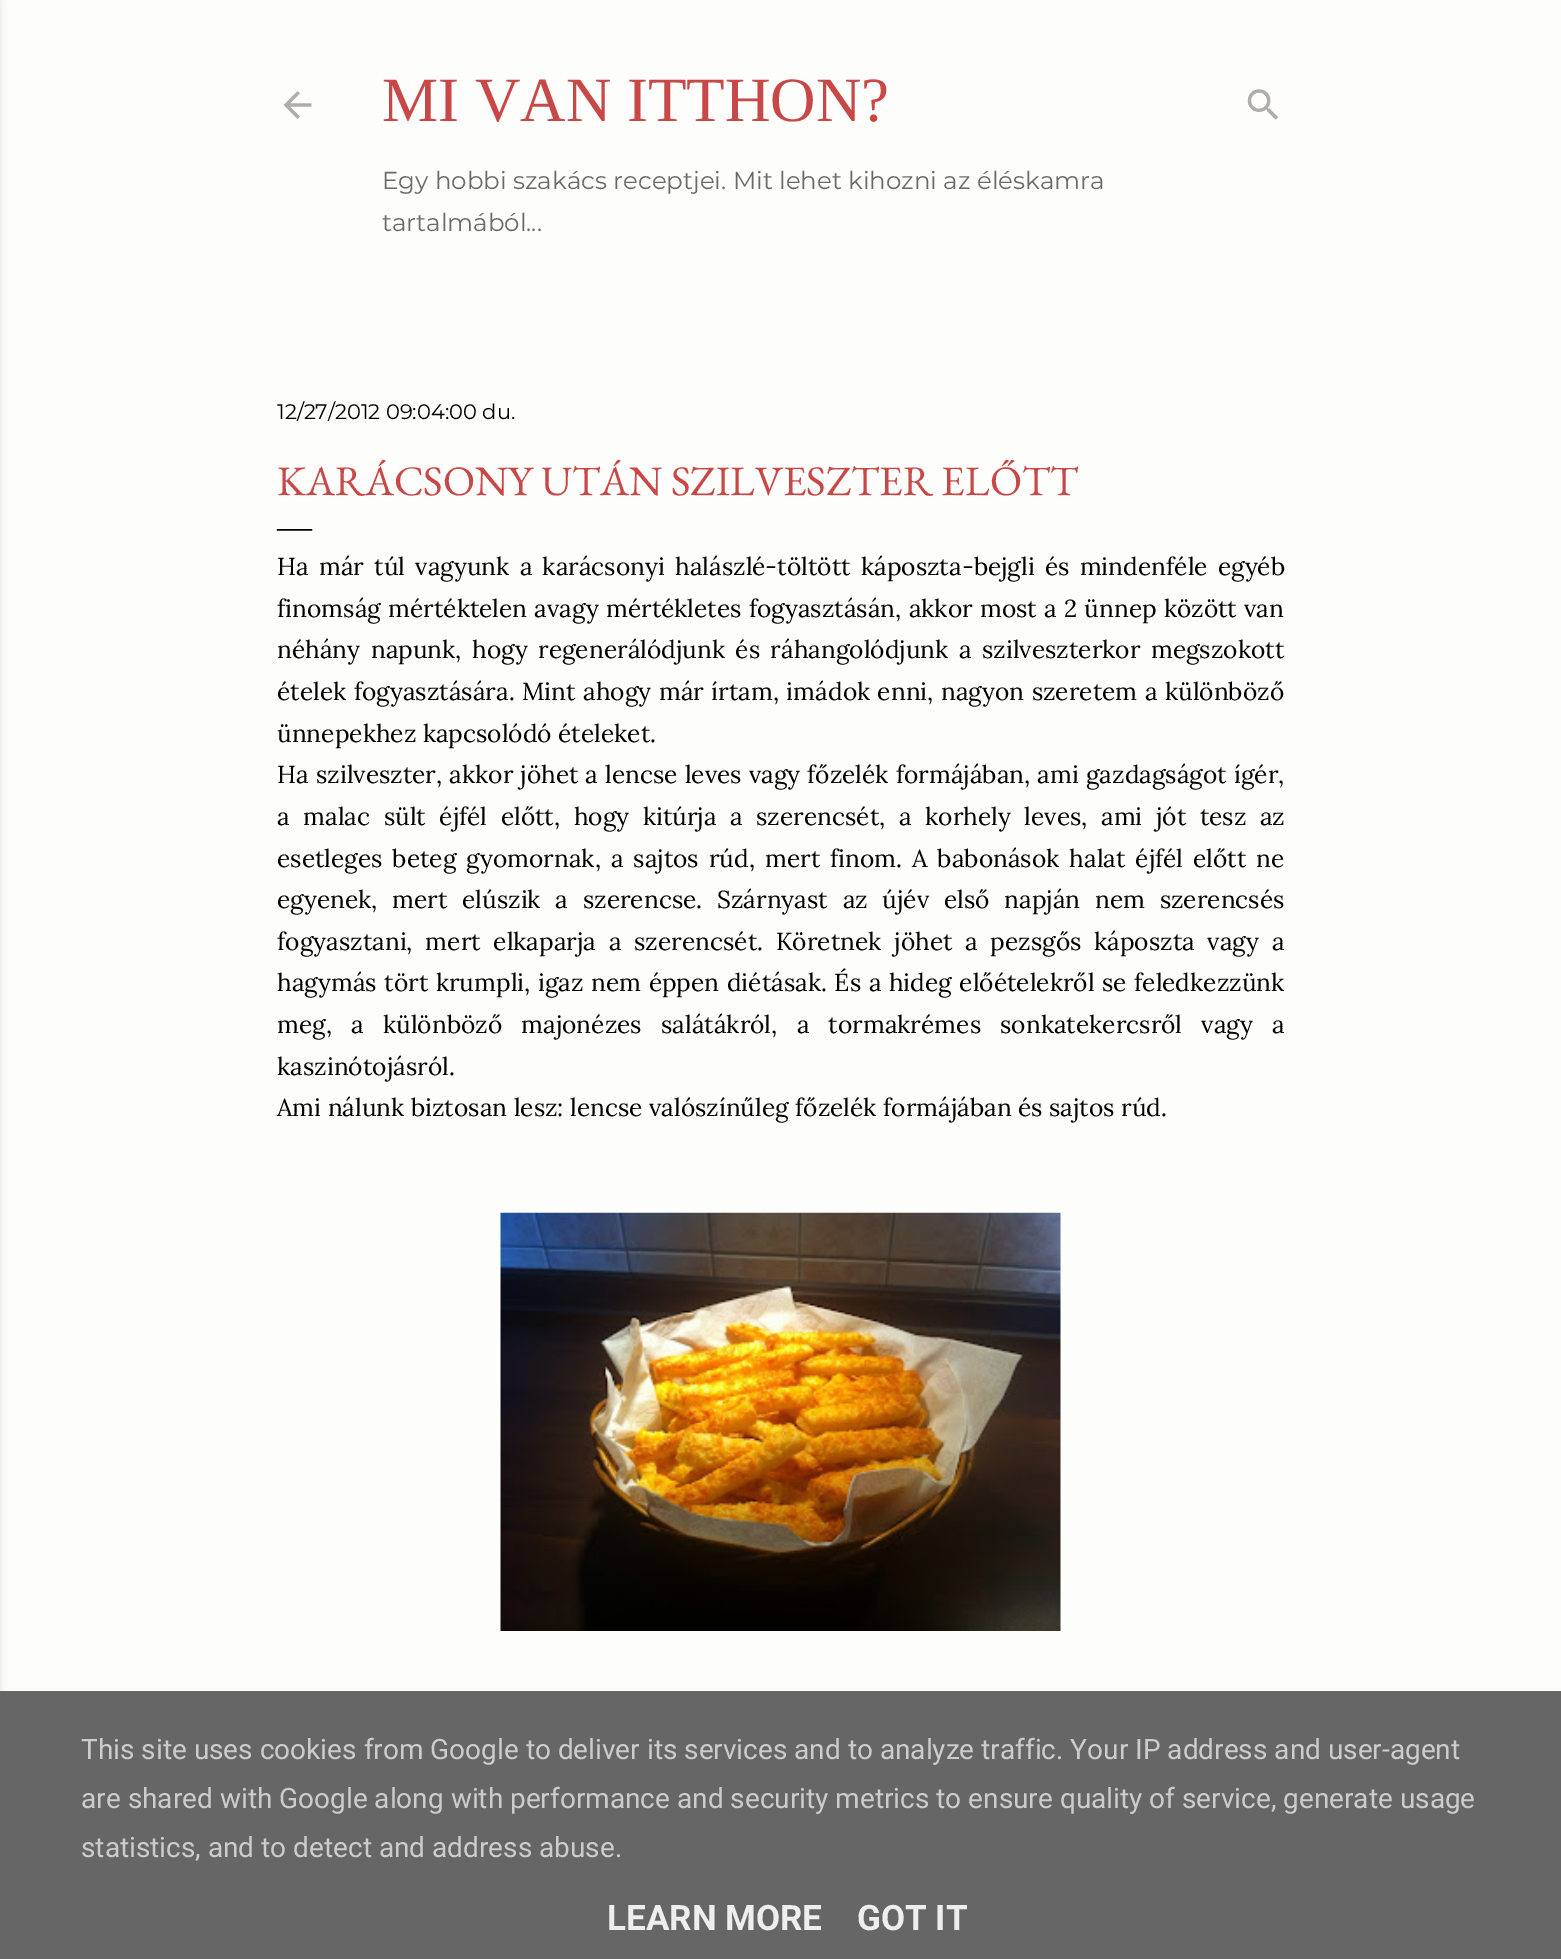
%!PS
<< /PageSize [1561 1959] /PageUsesTransparency true >> setpagedevice
/rgb { dup -16 bitshift 255 div exch dup -8 bitshift 255 and 255 div exch 255 and 255 div setrgbcolor } def
/font { [ exch dup neg 0 0 3 -1 roll 0 0 ] selectfont } def
/text { moveto show } def
/alpha { dup .setfillconstantalpha .setstrokeconstantalpha } def
/roundrect { 5 dict begin { /r /h /w /y /x } { exch def } forall
  x r add y moveto x w add y 2 copy h add r arct x w add y h add x 1 index r arct
  x y h add x y r arct x y 2 copy exch w add exch r arct closepath end } def
/shadow { 12 dict begin { /a /b /q /h /w /y /x } { exch def } forall gsave /was 0 def
  9 -2 -9 { dup b mul 4 div /e exch def 1 sub .425 mul 2.718 exch exp 1 add a .99 .min exch div /now exch def
    1 1 now sub 1 was sub div sub alpha /was now def
    w h .min e 2 mul add 0 gt { x e sub y e sub w e 2 mul add h e 2 mul add
      q e add b .6 mul add w h .min 2 div e add .min 0 .max roundrect fill } if } for grestore end } def
/picture { 5 dict begin { /h /w /y /x /name } { exch def } forall
  gsave x y translate w h scale
  w h 8 [w 0 0 h 0 0] name (r) file false 3 colorimage grestore end } def
0 .pushpdf14devicefilter
0 1959 translate 1 -1 scale
4 setmiterlimit
/s1 { /LiberationSerif-Regular 63 font 16#C84848 rgb } def
/s2 { /Montserrat-Regular 24.5 font 16#6A6A6A rgb } def
/s3 { /Montserrat-Regular 21 font 16#000000 rgb } def
/s4 { /EBGaramond-Regular 42 font 16#C84848 rgb } def
/s5 { /LiberationSerif-Regular 35 font 16#000000 rgb } def
/s6 { /Lora-Regular 24.5 font 16#000000 rgb } def
/s7 { /Roboto-Regular 28 font 16#CCCCCC rgb } def
/s8 { /Roboto-Bold 35 font 16#EEEEEE rgb } def
16#FDFEFB rgb
0 0 1561 1959 rectfill
16#686868 rgb
-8 0 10 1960 0 2.5 0.1 shadow
(pic1.raw) 283 91 29 28 picture
s1
(MI VAN ITTHON?) 382 121 text
s2
(Egy hobbi szakács receptjei. Mit lehet kihozni az éléskamra) 382 189 text
(tartalmából...) 382 231 text
(pic2.raw) 1247 89 32 31 picture
s3
(12/27/2012 09:04:00 du.) 277 419 text
s4
(KARÁCSONY UTÁN SZILVESZTER ELŐTT) 277 495 text
s5
(—) 277 538 text
/Lora-Regular 24.5 font
277 575 moveto 3.75 0 32 (Ha már túl vagyunk a karácsonyi halászlé-töltött káposzta-bejgli és mindenféle egyéb) widthshow
277 617 moveto 0.75 0 32 (finomság mértéktelen avagy mértékletes fogyasztásán, akkor most a 2 ünnep között van) widthshow
277 658 moveto 4 0 32 (néhány napunk, hogy regenerálódjunk és ráhangolódjunk a szilveszterkor megszokott) widthshow
277 700 moveto 1 0 32 (ételek fogyasztására. Mint ahogy már írtam, imádok enni, nagyon szeretem a különböző) widthshow
(ünnepekhez kapcsolódó ételeket.) 277 742 text
277 783 moveto 0.6 0 32 (Ha szilveszter, akkor jöhet a lencse leves vagy főzelék formájában, ami gazdagságot ígér,) widthshow
277 825 moveto 7.1 0 32 (a malac sült éjfél előtt, hogy kitúrja a szerencsét, a korhely leves, ami jót tesz az) widthshow
277 867 moveto 3.5 0 32 (esetleges beteg gyomornak, a sajtos rúd, mert finom. A babonások halat éjfél előtt ne) widthshow
277 908 moveto 8.25 0 32 (egyenek, mert elúszik a szerencse. Szárnyast az újév első napján nem szerencsés) widthshow
277 950 moveto 6.25 0 32 (fogyasztani, mert elkaparja a szerencsét. Köretnek jöhet a pezsgős káposzta vagy a) widthshow
277 991 moveto 1.1 0 32 (hagymás tört krumpli, igaz nem éppen diétásak. És a hideg előételekről se feledkezzünk) widthshow
277 1033 moveto 12.75 0 32 (meg, a különböző majonézes salátákról, a tormakrémes sonkatekercsről vagy a) widthshow
(kaszinótojásról.) 277 1075 text
(Ami nálunk biztosan lesz: lencse valószínűleg főzelék formájában és sajtos rúd.) 277 1116 text
(pic3.raw) 500 1212 561 419 picture
16#666666 rgb
0 1691 1561 268 rectfill
s7
(This site uses cookies from Google to deliver its services and to analyze traffic. Your IP address and user-agent) 81 1759 text
(are shared with Google along with performance and security metrics to ensure quality of service, generate usage) 81 1808 text
(statistics, and to detect and address abuse.) 81 1857 text
s8
(LEARN MORE) 607 1930 text
(GOT IT) 857 1930 text
.poppdf14devicefilter showpage
